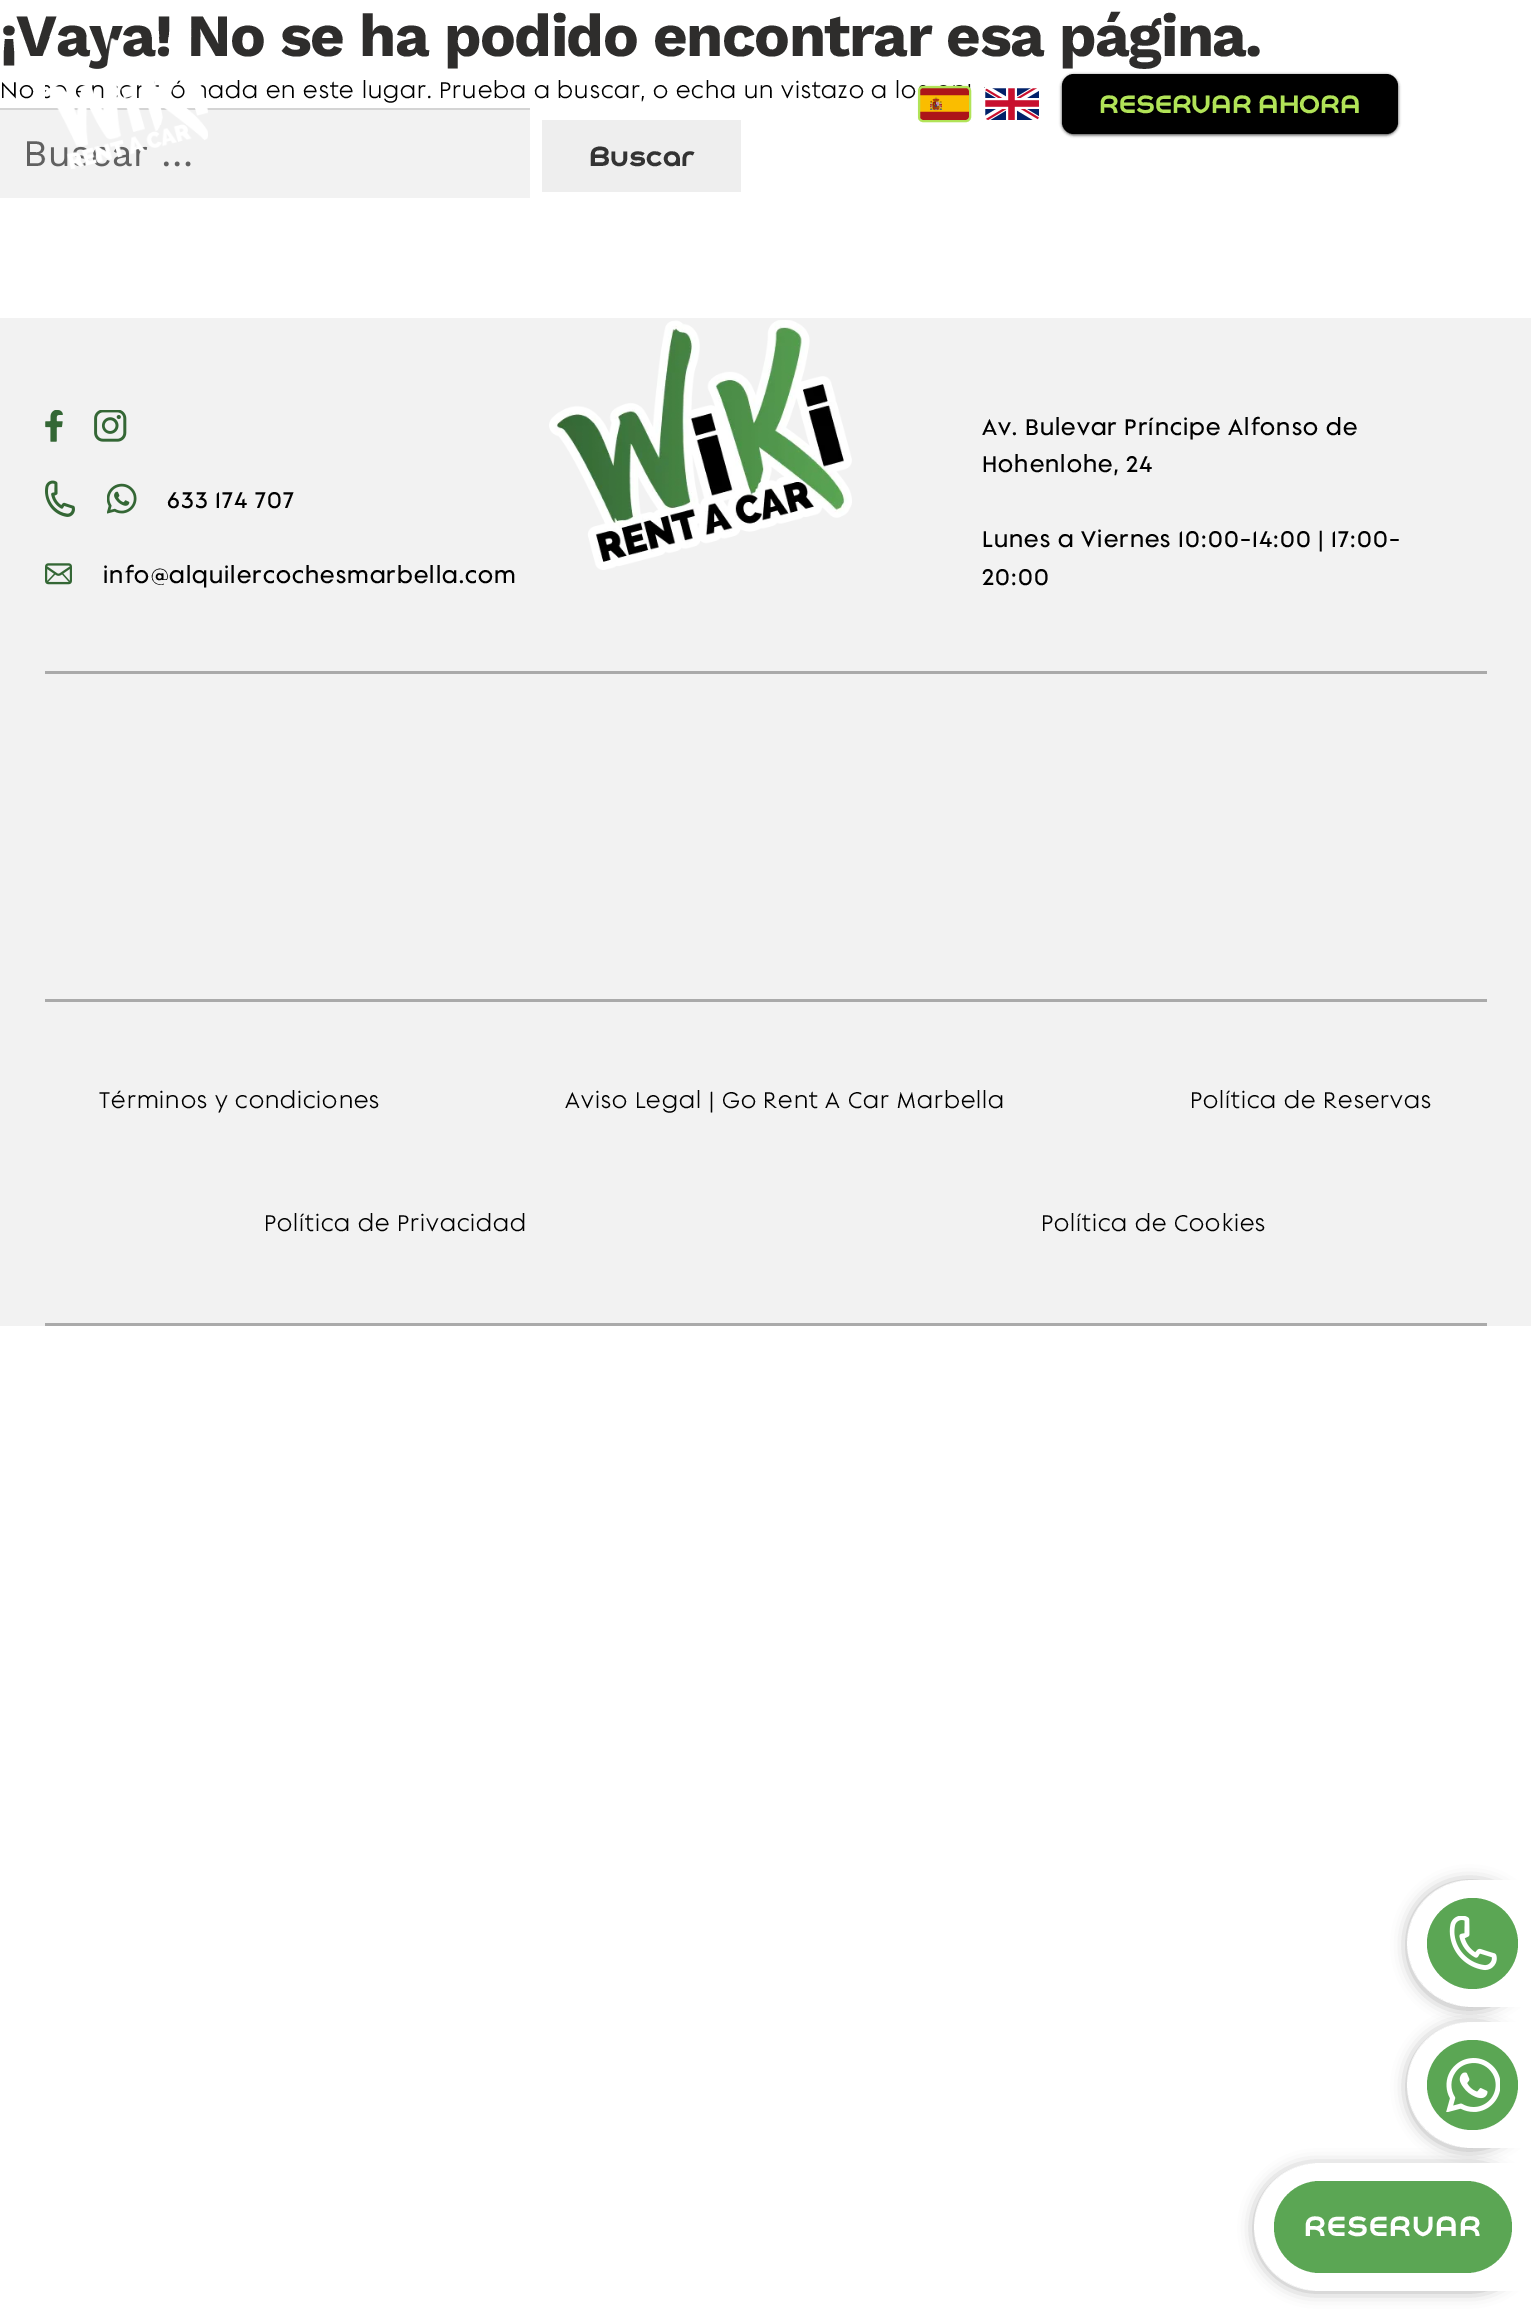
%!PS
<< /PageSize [1531 2320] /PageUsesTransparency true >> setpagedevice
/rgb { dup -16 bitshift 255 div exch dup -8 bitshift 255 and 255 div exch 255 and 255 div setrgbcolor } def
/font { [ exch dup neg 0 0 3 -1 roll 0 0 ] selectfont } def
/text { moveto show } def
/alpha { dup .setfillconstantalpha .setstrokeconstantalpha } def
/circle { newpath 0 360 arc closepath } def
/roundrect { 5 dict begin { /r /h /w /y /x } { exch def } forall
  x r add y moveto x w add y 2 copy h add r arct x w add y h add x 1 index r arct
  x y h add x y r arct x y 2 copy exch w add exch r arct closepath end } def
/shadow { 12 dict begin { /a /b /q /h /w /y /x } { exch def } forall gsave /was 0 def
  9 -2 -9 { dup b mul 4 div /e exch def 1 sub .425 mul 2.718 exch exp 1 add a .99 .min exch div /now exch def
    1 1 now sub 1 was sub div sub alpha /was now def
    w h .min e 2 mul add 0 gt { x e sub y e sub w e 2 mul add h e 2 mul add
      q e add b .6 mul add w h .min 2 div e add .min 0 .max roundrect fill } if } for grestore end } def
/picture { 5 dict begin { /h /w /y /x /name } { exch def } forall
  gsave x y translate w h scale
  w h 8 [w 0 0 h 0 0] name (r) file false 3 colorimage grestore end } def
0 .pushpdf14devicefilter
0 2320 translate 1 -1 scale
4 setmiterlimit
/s1 { /WorkSans-Regular 37.5 font 16#616161 rgb } def
/s2 { /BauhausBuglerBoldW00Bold-Bold 33 font 16#333333 rgb } def
/s3 { /BauhausBuglerBoldW00Bold-Bold 30 font 16#B1E357 rgb } def
16#FFFFFF rgb
0 0 1531 2320 rectfill
/WorkSans-Bold 60 font
16#2E2D2C rgb
0 56 moveto -1.5 0 (¡Vaya! No se ha podido encontrar esa página.) ashow
/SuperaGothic-Regular 22.5 font
16#000000 rgb
0 98 moveto 1.12 0 (No) ashow
170 98 moveto 1.12 0 (ó nada en este lugar. Prueba a buscar, o echa un vistazo a lo) ashow
16#F2F2F2 rgb
0 110 530 88 rectfill
16#D4D4D4 rgb
0 108 530 2 rectfill
s1
(Buscar …) 23 166 text
16#EEEEEE rgb
542 120 199 72 rectfill
s2
(Buscar) 589 166 text
(pic1.raw) 45 37 163 132 picture
(pic2.raw) 917 84 55 39 picture
16#B1E357 rgb
2 setlinewidth
919 87 51 34 4 roundrect stroke
(pic3.raw) 984 87 55 33 picture
16#FFFFFF rgb
984 87 56 34 4 roundrect stroke
16#000000 rgb
1062 75 336 60 12 1.5 0.75 shadow
1062 74 336 60 12 roundrect fill
s3
(RESERVAR AHORA) 1099 113 text
16#F2F2F2 rgb
0 318 1531 1008 rectfill
(pic4.raw) 45 410 18 32 picture
(pic5.raw) 94 410 33 32 picture
(pic6.raw) 45 480 30 37 picture
(pic7.raw) 107 483 30 31 picture
/SuperaGothic-Bold 22.5 font
16#000000 rgb
167 508 moveto 1.12 0 (633 174 707) ashow
(pic8.raw) 45 563 27 22 picture
103 583 moveto 1.12 0 (info@alquilercochesmarbella.com) ashow
(pic9.raw) 549 320 303 250 picture
982 435 moveto 1.12 0 (Av. Bulevar Príncipe Alfonso de) ashow
982 472 moveto 1.12 0 (Hohenlohe, 24) ashow
982 547 moveto 1.12 0 (Lunes a Viernes 10:00-14:00 | 17:00-) ashow
982 585 moveto 1.12 0 (20:00) ashow
16#AAAAAA rgb
45 671 1442 3 rectfill
45 999 1442 3 rectfill
45 1323 1442 3 rectfill
/SuperaGothic-Regular 22.5 font
16#000000 rgb
99 1108 moveto 1.12 0 (Términos y condiciones) ashow
565 1108 moveto 1.12 0 (Aviso Legal | Go Rent A Car Marbella) ashow
1190 1108 moveto 1.12 0 (Política de Reservas) ashow
264 1231 moveto 1.12 0 (Política de Privacidad) ashow
1041 1231 moveto 1.12 0 (Política de Cookies) ashow
gsave
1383 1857 moveto 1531 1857 lineto 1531 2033 lineto 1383 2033 lineto closepath 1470.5 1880 moveto 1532 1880 lineto 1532 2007 lineto 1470.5 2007 lineto 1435.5 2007 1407 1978.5 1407 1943.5 curveto 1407 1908.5 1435.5 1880 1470.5 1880 curveto closepath eoclip newpath
1407 1881 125 128 64 7.5 0.3 shadow
grestore
0.8 alpha
16#FFFFFF rgb
1470.5 1880 moveto 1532 1880 lineto 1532 2007 lineto 1470.5 2007 lineto 1435.5 2007 1407 1978.5 1407 1943.5 curveto 1407 1908.5 1435.5 1880 1470.5 1880 curveto closepath fill
1 alpha
16#5BA654 rgb
1472.5 1943.5 45.5 circle fill
(pic10.raw) 1449 1916 48 55 picture
gsave
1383 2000 moveto 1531 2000 lineto 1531 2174 lineto 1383 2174 lineto closepath 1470 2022 moveto 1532 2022 lineto 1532 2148 lineto 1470 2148 lineto 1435 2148 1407 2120 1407 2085 curveto 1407 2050 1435 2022 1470 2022 curveto closepath eoclip newpath
16#000000 rgb
1407 2024 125 126 63 7.5 0.3 shadow
grestore
0.8 alpha
16#FFFFFF rgb
1470 2022 moveto 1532 2022 lineto 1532 2148 lineto 1470 2148 lineto 1435 2148 1407 2120 1407 2085 curveto 1407 2050 1435 2022 1470 2022 curveto closepath fill
1 alpha
16#5BA654 rgb
1427 2040 91 90 45 roundrect fill
(pic11.raw) 1446 2058 54 54 picture
gsave
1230 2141 moveto 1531 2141 lineto 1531 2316 lineto 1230 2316 lineto closepath 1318 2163 moveto 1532 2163 lineto 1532 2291 lineto 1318 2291 lineto 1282.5 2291 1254 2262.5 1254 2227 curveto 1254 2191.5 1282.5 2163 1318 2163 curveto closepath eoclip newpath
16#000000 rgb
1254 2165 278 127 63.5 7.5 0.3 shadow
grestore
0.8 alpha
16#FFFFFF rgb
1318 2163 moveto 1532 2163 lineto 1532 2291 lineto 1318 2291 lineto 1282.5 2291 1254 2262.5 1254 2227 curveto 1254 2191.5 1282.5 2163 1318 2163 curveto closepath fill
1 alpha
16#5BA654 rgb
1274 2181 238 92 46 roundrect fill
/BauhausBuglerBoldW00Bold-Bold 33.25 font
16#FFFFFF rgb
1304 2236 moveto 1.12 0 (RESERVAR) ashow
.poppdf14devicefilter showpage
